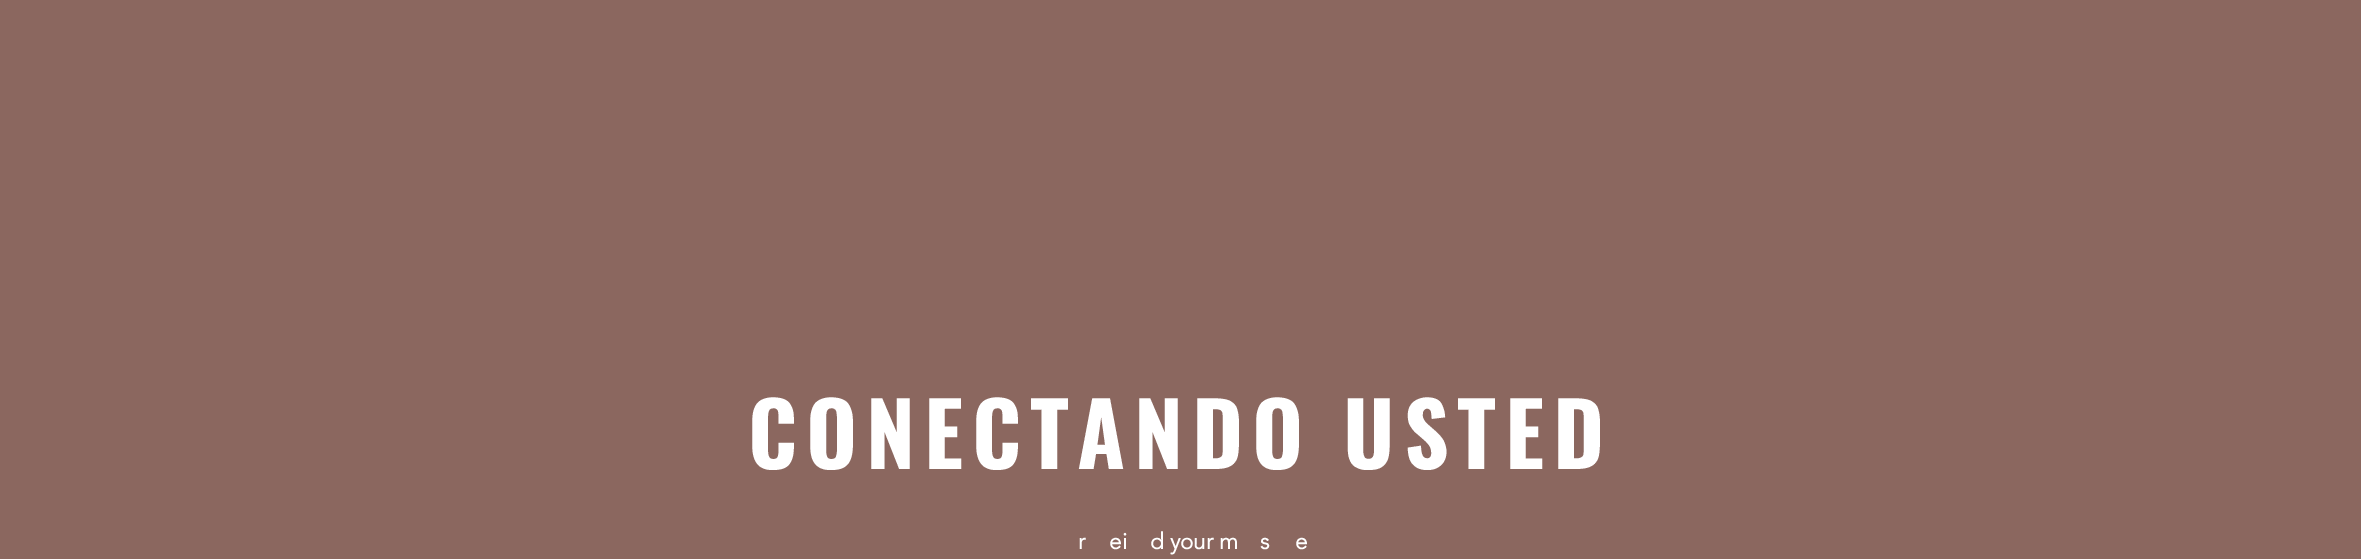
%!PS
<< /PageSize [2361 559] >> setpagedevice
/rgb { dup -16 bitshift 255 div exch dup -8 bitshift 255 and 255 div exch 255 and 255 div setrgbcolor } def
/font { [ exch dup neg 0 0 3 -1 roll 0 0 ] selectfont } def
/text { moveto show } def
0 559 translate 1 -1 scale
4 setmiterlimit
/s1 { /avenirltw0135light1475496-Bold 22.5 font 16#FFFFFF rgb } def
16#8B675F rgb
0 0 2361 559 rectfill
/Oswald-Bold 87.5 font
16#FFFFFF rgb
748 469 moveto 8.75 0 (CONECTANDO USTED) ashow
s1
(r) 1078 549 text
(ei) 1109 549 text
(d your m) 1150 549 text
(s) 1260 549 text
(e) 1295 549 text
showpage
